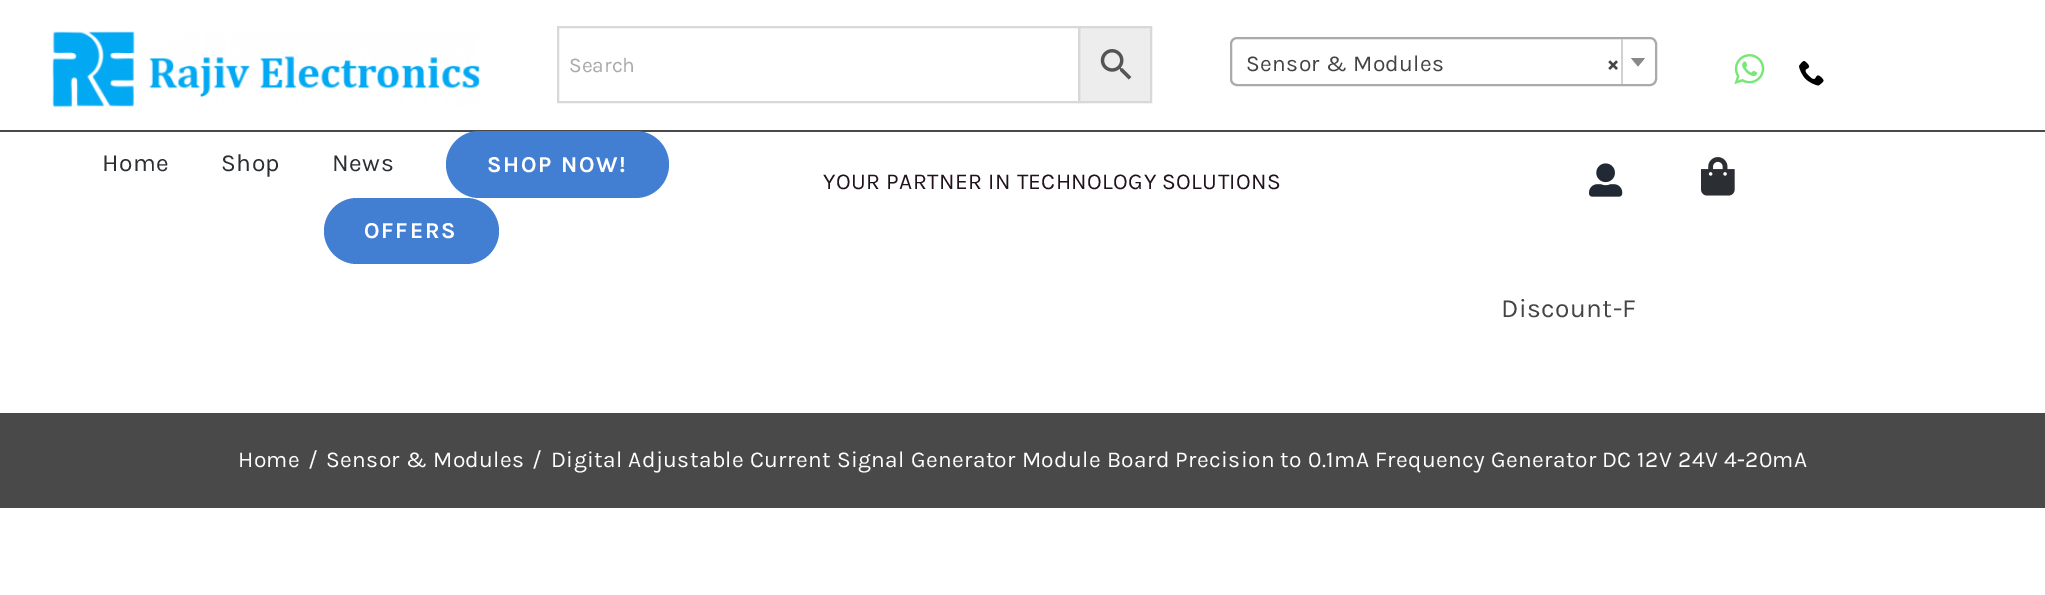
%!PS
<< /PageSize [2045 595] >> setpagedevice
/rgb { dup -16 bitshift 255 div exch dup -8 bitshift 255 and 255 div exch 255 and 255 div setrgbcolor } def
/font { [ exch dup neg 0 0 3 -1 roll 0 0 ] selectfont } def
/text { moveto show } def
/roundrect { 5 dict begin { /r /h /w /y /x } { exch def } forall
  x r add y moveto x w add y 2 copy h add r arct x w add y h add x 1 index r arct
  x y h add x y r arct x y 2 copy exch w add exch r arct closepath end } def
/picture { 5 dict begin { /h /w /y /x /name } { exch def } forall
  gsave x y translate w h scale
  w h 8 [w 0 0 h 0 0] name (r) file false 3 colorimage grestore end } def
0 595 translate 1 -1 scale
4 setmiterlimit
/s1 { /Karla-Regular 21 font 16#AAAAAA rgb } def
16#FFFFFF rgb
0 0 2045 595 rectfill
(pic1.raw) 52 31 428 76 picture
16#EDEDED rgb
1079 27 moveto 1151 27 lineto 1151 102 lineto 1079 102 lineto closepath gsave fill grestore
16#D8D8D8 rgb
2 setlinewidth
stroke
558 27 521 75 rectstroke
s1
(Search) 569 72 text
(pic2.raw) 1100 49 32 31 picture
1231 38 425 47 6 roundrect stroke
/Karla-Regular 22.75 font
16#444444 rgb
1246 71 moveto 0.39 0 (Sensor & Modules) ashow
/Karla-Bold 22.75 font
1607 71 moveto 0.39 0 (×) ashow
16#D1D1D1 rgb
1621 39 2 45 rectfill
16#888888 rgb
1631 58 moveto 1645 58 lineto 1638 66.5 lineto closepath fill
(pic3.raw) 1734 54 31 31 picture
(pic4.raw) 1799 61 25 25 picture
16#494949 rgb
0 130 2045 2 rectfill
/Karla-Regular 24.5 font
16#2B2E32 rgb
102 171 moveto 0.5 0 (Home) ashow
221 171 moveto 0.5 0 (Shop) ashow
332 171 moveto 0.5 0 (News) ashow
16#427ED1 rgb
446 131 223 67 33.5 roundrect fill
/Karla-Bold 22.75 font
16#FFFFFF rgb
487 172 moveto 1.75 0 (SHOP NOW!) ashow
16#427ED1 rgb
324 198 175 66 33 roundrect fill
16#FFFFFF rgb
364 238 moveto 1.75 0 (OFFERS) ashow
/Karla-Regular 22.75 font
16#21121B rgb
823 189 moveto 0.39 0 (YOUR PARTNER IN TECHNOLOGY SOLUTIONS) ashow
(pic5.raw) 1589 163 34 34 picture
(pic6.raw) 1701 157 34 39 picture
/Karla-Regular 26.25 font
16#444444 rgb
1501 317 moveto 0.39 0 (Discount-F) ashow
16#494949 rgb
0 413 2045 95 rectfill
/Karla-Regular 22.75 font
16#FFFFFF rgb
238 467 moveto 0.39 0 (Home) ashow
308 467 moveto 0.39 0 (/) ashow
326 467 moveto 0.39 0 (Sensor & Modules) ashow
532 467 moveto 0.39 0 (/) ashow
551 467 moveto 0.39 0 (Digital Adjustable Current Signal Generator Module Board Precision to 0.1mA Frequency Generator DC 12V 24V 4-20mA) ashow
showpage
